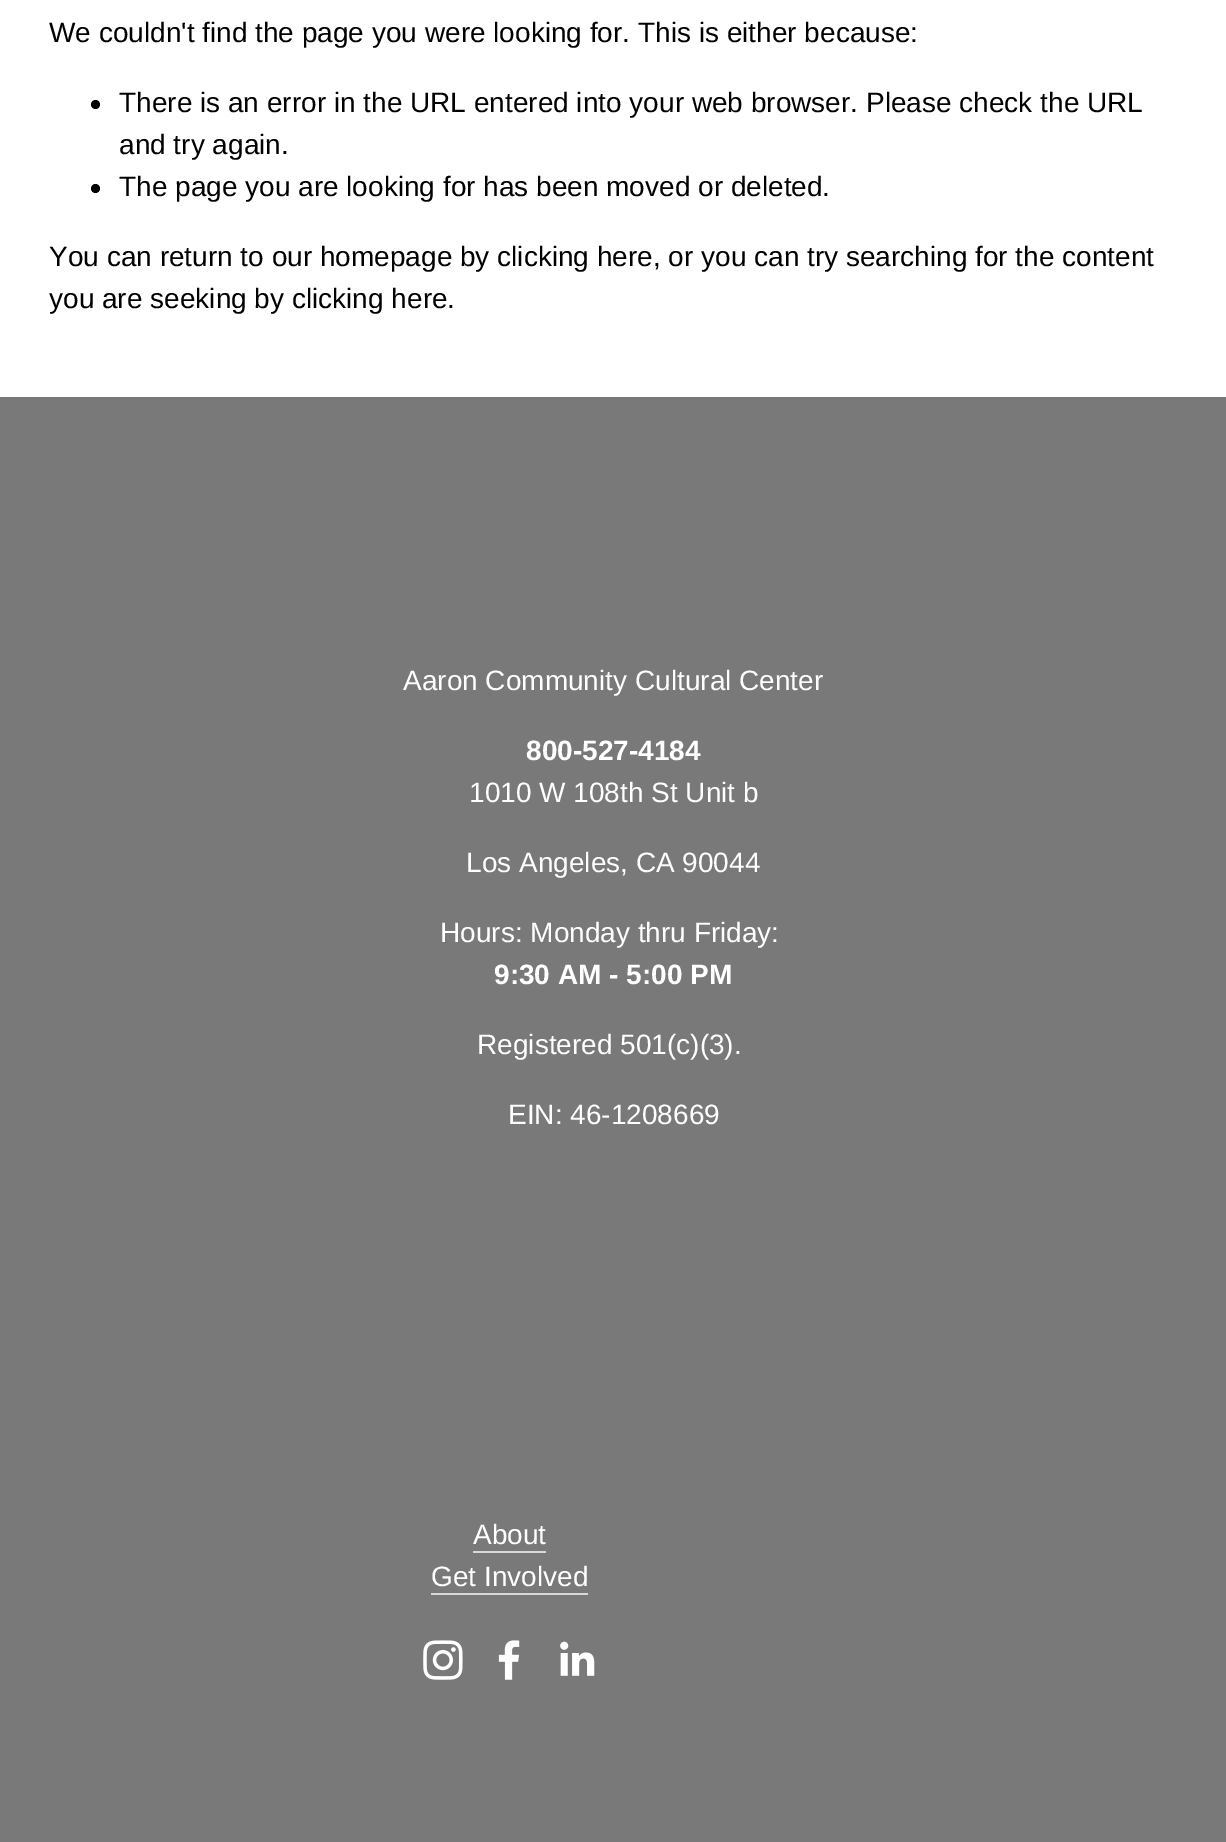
%!PS
<< /PageSize [1226 1842] >> setpagedevice
/rgb { dup -16 bitshift 255 div exch dup -8 bitshift 255 and 255 div exch 255 and 255 div setrgbcolor } def
/font { [ exch dup neg 0 0 3 -1 roll 0 0 ] selectfont } def
/text { moveto show } def
/circle { newpath 0 360 arc closepath } def
/picture { 5 dict begin { /h /w /y /x /name } { exch def } forall
  gsave x y translate w h scale
  w h 8 [w 0 0 h 0 0] name (r) file false 3 colorimage grestore end } def
0 1842 translate 1 -1 scale
4 setmiterlimit
/s1 { /Arimo-Regular 28 font 16#000000 rgb } def
/s2 { /Arimo-Regular 28 font 16#FFFFFF rgb } def
/s3 { /Arimo-Bold 28 font 16#FFFFFF rgb } def
16#FFFFFF rgb
0 0 1226 1842 rectfill
s1
(We couldn't find the page you were looking for. This is either because:) 49 42 text
95.5 104.5 4.5 circle fill
(There is an error in the URL entered into your web browser. Please check the URL) 119 112 text
(and try again.) 119 154 text
95.5 188.5 4.5 circle fill
(The page you are looking for has been moved or deleted.) 119 196 text
(You can return to our homepage by clicking here, or you can try searching for the content) 49 266 text
(you are seeking by clicking here.) 49 308 text
16#797979 rgb
0 397 1226 1445 rectfill
s2
(Aaron Community Cultural Center) 403 690 text
s3
(800-527-4184) 526 760 text
s2
(1010 W 108th St Unit b) 469 802 text
(Los Angeles, CA 90044) 466 872 text
(Hours: Monday thru Friday:) 440 942 text
s3
(9:30 AM - 5:00 PM) 494 984 text
s2
(Registered 501\(c\)\(3\).) 477 1054 text
(EIN: 46-1208669) 508 1124 text
(About) 473 1544 text
16#D9D9D9 rgb
473 1551 73 2 rectfill
s2
(Get Involved) 431 1586 text
16#D9D9D9 rgb
431 1593 157 2 rectfill
(pic1.raw) 423 1640 40 40 picture
(pic2.raw) 498 1640 22 40 picture
(pic3.raw) 560 1641 35 35 picture
showpage
